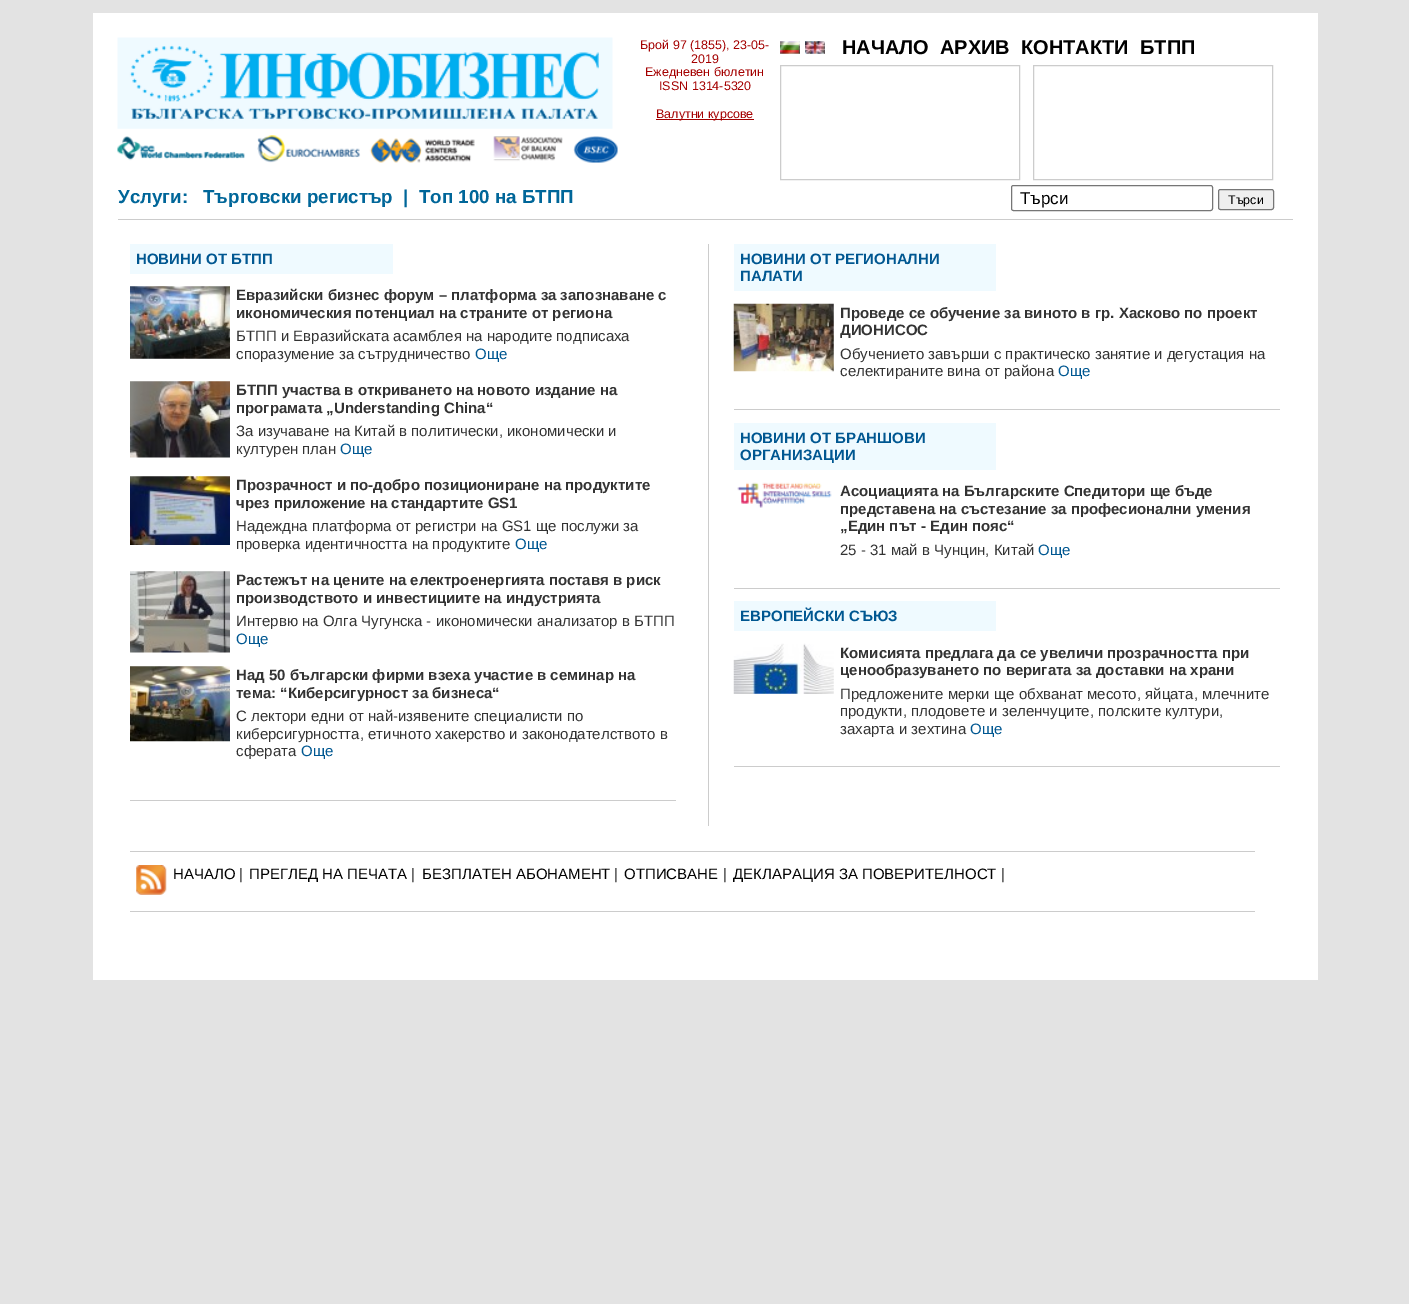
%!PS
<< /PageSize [1409 1304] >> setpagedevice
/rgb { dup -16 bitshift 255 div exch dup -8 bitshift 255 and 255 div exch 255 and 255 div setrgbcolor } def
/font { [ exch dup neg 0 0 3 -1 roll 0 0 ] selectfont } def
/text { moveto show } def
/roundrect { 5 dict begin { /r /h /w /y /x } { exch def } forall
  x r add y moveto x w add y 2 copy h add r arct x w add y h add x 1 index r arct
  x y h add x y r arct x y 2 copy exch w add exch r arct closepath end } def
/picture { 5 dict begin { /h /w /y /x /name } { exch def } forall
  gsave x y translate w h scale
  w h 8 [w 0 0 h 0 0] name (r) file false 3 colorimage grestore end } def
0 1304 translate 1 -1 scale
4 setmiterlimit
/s1 { /LiberationSans-Regular 12.5 font 16#A40000 rgb } def
/s2 { /LiberationSans-Bold 20 font 16#000000 rgb } def
/s3 { /LiberationSans-Bold 18.75 font 16#006699 rgb } def
/s4 { /LiberationSans-Regular 17 font 16#000000 rgb } def
/s5 { /LiberationSans-Regular 12.5 font 16#000000 rgb } def
/s6 { /LiberationSans-Bold 15 font 16#005791 rgb } def
/s7 { /LiberationSans-Bold 15 font 16#333333 rgb } def
/s8 { /LiberationSans-Regular 15 font 16#333333 rgb } def
/s9 { /LiberationSans-Regular 15 font 16#005791 rgb } def
/s10 { /LiberationSans-Regular 15 font 16#000000 rgb } def
16#E3E3E3 rgb
0 0 1409 1304 rectfill
16#FFFFFF rgb
93 13 1225 967 rectfill
16#CCCCCC rgb
118 219 1175 1 rectfill
(pic1.raw) 117 37 496 92 picture
(pic2.raw) 117 135 501 28 picture
s1
(Брой 97 \(1855\), 23-05-) 640 49 text
(2019) 691 63 text
(Ежедневен бюлетин) 645 76 text
(ISSN 1314-5320) 659 90 text
656 119 98 1 rectfill
(Валутни курсове) 656 118 text
(pic3.raw) 780 41 20 13 picture
(pic4.raw) 805 41 20 13 picture
s2
(НАЧАЛО) 842 54 text
(АРХИВ) 940 54 text
(КОНТАКТИ) 1021 54 text
(БТПП) 1140 54 text
16#CCCCCC rgb
780.5 65.5 239 114 rectstroke
1033.5 65.5 239 114 rectstroke
s3
(Услуги:) 118 203 text
(Търговски регистър) 203 203 text
(|) 403 203 text
(Топ 100 на БТПП) 419 203 text
16#767676 rgb
1011.5 185.5 201 25 2 roundrect stroke
s4
(Търси) 1020 204 text
16#EFEFEF rgb
1218.5 189.5 55 20 2 roundrect gsave fill grestore
16#767676 rgb
stroke
s5
(Търси) 1228 204 text
16#CCCCCC rgb
708 244 1 582 rectfill
130 800 546 1 rectfill
16#EFFAFF rgb
130 244 263 30 rectfill
s6
(НОВИНИ ОТ БТПП) 136 264 text
(pic5.raw) 130 286 100 73 picture
s7
(Евразийски бизнес форум – платформа за запознаване с) 236 300 text
(икономическия потенциал на страните от региона) 236 318 text
s8
(БТПП и Евразийската асамблея на народите подписаха) 236 341 text
(споразумение за сътрудничество) 236 359 text
s9
(Още) 475 359 text
(pic6.raw) 130 381 100 77 picture
s7
(БТПП участва в откриването на новото издание на) 236 395 text
(програмата „Understanding China“) 236 413 text
s8
(За изучаване на Китай в политически, икономически и) 236 436 text
(културен план) 236 454 text
s9
(Още) 340 454 text
(pic7.raw) 130 476 100 69 picture
s7
(Прозрачност и по-добро позициониране на продуктите) 236 490 text
(чрез приложение на стандартите GS1) 236 508 text
s8
(Надеждна платформа от регистри на GS1 ще послужи за) 236 531 text
(проверка идентичността на продуктите) 236 549 text
s9
(Още) 515 549 text
(pic8.raw) 130 571 100 82 picture
s7
(Растежът на цените на електроенергията поставя в риск) 236 585 text
(производството и инвестициите на индустрията) 236 603 text
s8
(Интервю на Олга Чугунска - икономически анализатор в БТПП) 236 626 text
s9
(Още) 236 644 text
(pic9.raw) 130 666 100 76 picture
s7
(Над 50 български фирми взеха участие в семинар на) 236 680 text
(тема: “Киберсигурност за бизнеса“) 236 698 text
s8
(С лектори едни от най-изявените специалисти по) 236 721 text
(киберсигурността, етичното хакерство и законодателството в) 236 739 text
(сферата) 236 756 text
s9
(Още) 301 756 text
16#CCCCCC rgb
734 409 546 1 rectfill
16#EFFAFF rgb
734 244 262 47 rectfill
s6
(НОВИНИ ОТ РЕГИОНАЛНИ) 740 264 text
(ПАЛАТИ) 740 281 text
(pic10.raw) 733 303 101 69 picture
s7
(Проведе се обучение за виното в гр. Хасково по проект) 840 318 text
(ДИОНИСОС) 840 335 text
s8
(Обучението завърши с практическо занятие и дегустация на) 840 359 text
(селектираните вина от района) 840 376 text
s9
(Още) 1058 376 text
16#CCCCCC rgb
734 588 546 1 rectfill
16#EFFAFF rgb
734 423 262 47 rectfill
s6
(НОВИНИ ОТ БРАНШОВИ) 740 443 text
(ОРГАНИЗАЦИИ) 740 460 text
(pic11.raw) 737 482 95 26 picture
s7
(Асоциацията на Българските Спедитори ще бъде) 840 496 text
(представена на състезание за професионални умения) 840 514 text
(„Един път - Един пояс“) 840 531 text
s8
(25 - 31 май в Чунцин, Китай) 840 555 text
s9
(Още) 1038 555 text
16#CCCCCC rgb
734 766 546 1 rectfill
16#EFFAFF rgb
734 601 262 30 rectfill
s6
(ЕВРОПЕЙСКИ СЪЮЗ) 740 621 text
(pic12.raw) 733 643 101 51 picture
s7
(Комисията предлага да се увеличи прозрачността при) 840 658 text
(ценообразуването по веригата за доставки на храни) 840 675 text
s8
(Предложените мерки ще обхванат месото, яйцата, млечните) 840 699 text
(продукти, плодовете и зеленчуците, полските култури,) 840 716 text
(захарта и зехтина) 840 734 text
s9
(Още) 970 734 text
16#CCCCCC rgb
130 851 1125 1 rectfill
130 911 1125 1 rectfill
(pic13.raw) 136 865 31 30 picture
s10
(НАЧАЛО) 173 879 text
s8
(|) 239 879 text
s10
(ПРЕГЛЕД НА ПЕЧАТА) 249 879 text
s8
(|) 411 879 text
s10
(БЕЗПЛАТЕН AБОНАМЕНТ) 422 879 text
s8
(|) 614 879 text
s10
(ОТПИСВАНЕ) 624 879 text
s8
(|) 723 879 text
s10
(ДЕКЛАРАЦИЯ ЗА ПОВЕРИТЕЛНОСT) 733 879 text
s8
(|) 1001 879 text
showpage
